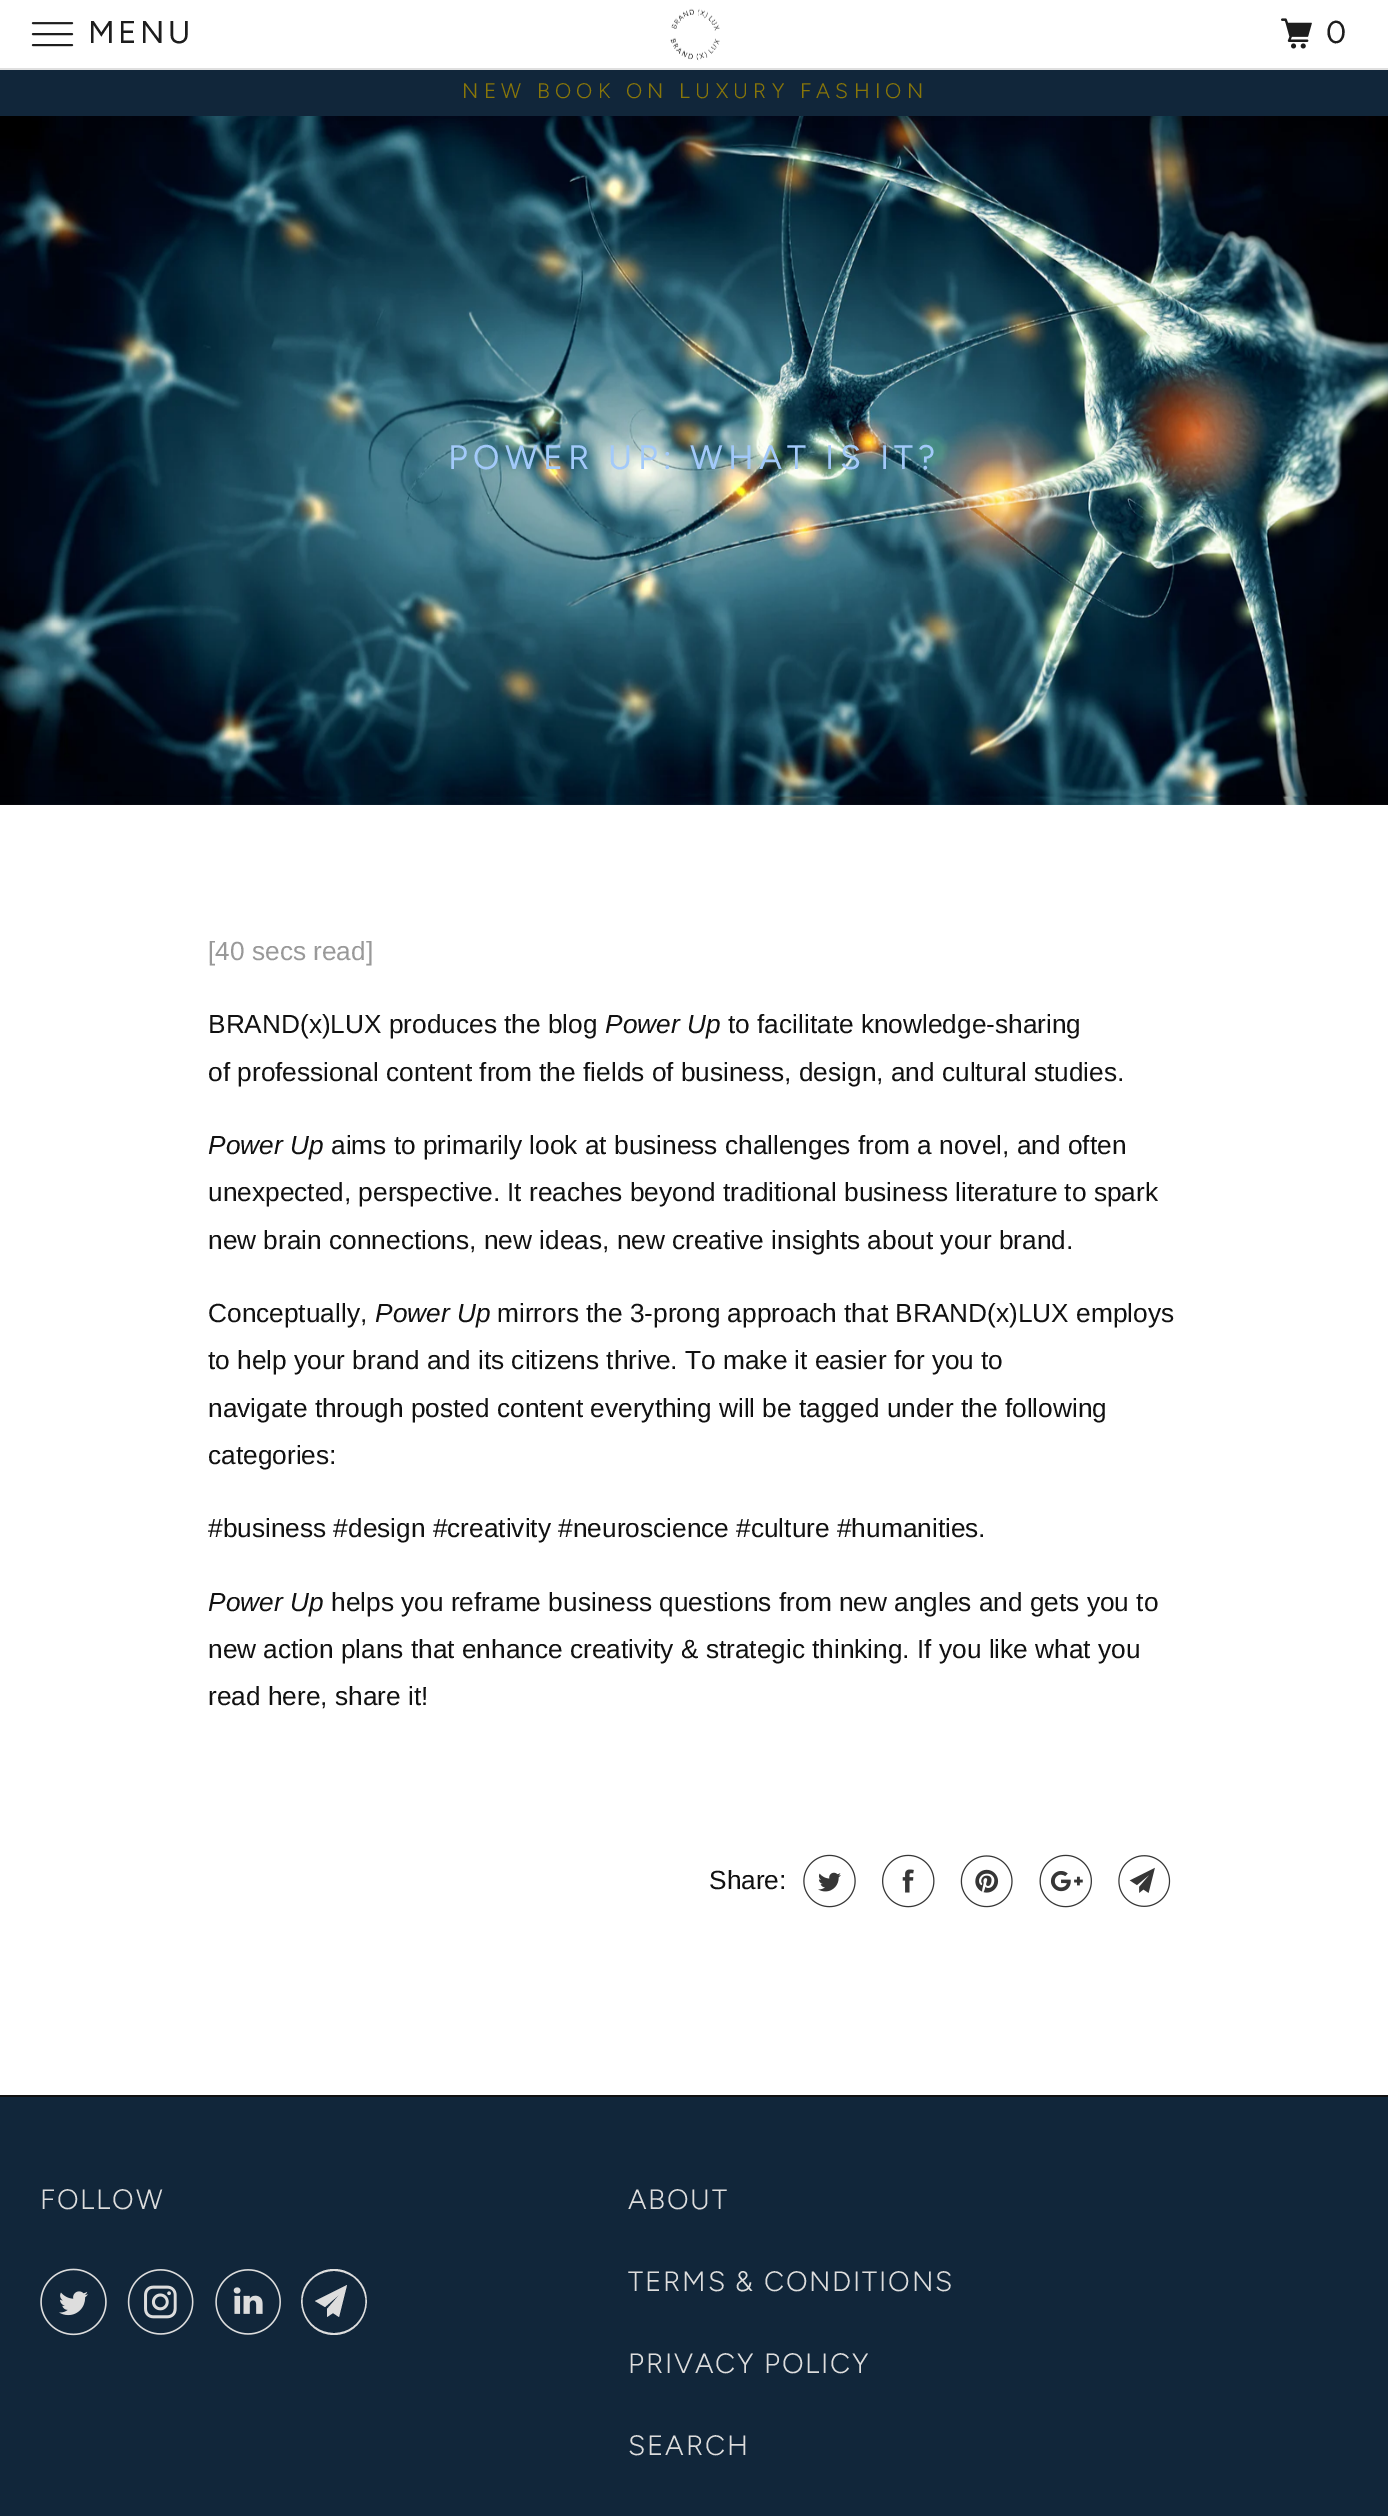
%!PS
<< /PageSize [1388 2516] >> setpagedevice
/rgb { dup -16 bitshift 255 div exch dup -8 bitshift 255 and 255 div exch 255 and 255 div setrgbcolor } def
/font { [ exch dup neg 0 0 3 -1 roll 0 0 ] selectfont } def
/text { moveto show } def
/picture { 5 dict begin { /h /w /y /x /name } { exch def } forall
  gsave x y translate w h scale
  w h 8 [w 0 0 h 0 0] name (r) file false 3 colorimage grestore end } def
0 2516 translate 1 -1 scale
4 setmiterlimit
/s1 { /LiberationSans-Regular 26.25 font 16#999999 rgb } def
/s2 { /LiberationSans-Regular 26.25 font 16#111111 rgb } def
/s3 { /LiberationSans-Italic 26.25 font 16#111111 rgb } def
16#FFFFFF rgb
0 0 1388 2516 rectfill
16#DFDFDF rgb
0 68 1388 2 rectfill
(pic1.raw) 31 22 43 25 picture
/Figtree-Regular 31.5 font
16#1D1D1D rgb
88 43 moveto 3.5 0 (MENU) ashow
(pic2.raw) 670 8 50 53 picture
(pic3.raw) 1281 18 31 31 picture
1326 43 moveto 3.5 0 (0) ashow
16#11263A rgb
0 70 1388 46 rectfill
/Figtree-Light 21 font
16#887609 rgb
462 98 moveto 5.25 0 (NEW BOOK ON LUXURY FASHION) ashow
(pic4.raw) 0 795 1388 10 picture
(pic5.raw) 0 116 1388 681 picture
/Figtree-Regular 34.1 font
16#A3CAFA rgb
448 469 moveto 5.25 0 (POWER UP: WHAT IS IT?) ashow
s1
([40 secs read]) 208 960 text
s2
(BRAND\(x\)LUX produces the blog) 208 1033 text
s3
(Power Up) 605 1033 text
s2
(to facilitate knowledge-sharing) 728 1033 text
(of professional content from the fields of business, design, and cultural studies.) 208 1081 text
s3
(Power Up) 208 1154 text
s2
(aims to primarily look at business challenges from a novel, and often) 331 1154 text
(unexpected, perspective. It reaches beyond traditional business literature to spark) 208 1201 text
(new brain connections, new ideas, new creative insights about your brand.) 208 1249 text
(Conceptually,) 208 1322 text
s3
(Power Up) 375 1322 text
s2
(mirrors the 3-prong approach that BRAND\(x\)LUX employs) 497 1322 text
(to help your brand and its citizens thrive. To make it easier for you to) 208 1369 text
(navigate through posted content everything will be tagged under the following) 208 1417 text
(categories:) 208 1464 text
(#business #design #creativity #neuroscience #culture #humanities.) 208 1537 text
s3
(Power Up) 208 1611 text
s2
(helps you reframe business questions from new angles and gets you to) 331 1611 text
(new action plans that enhance creativity & strategic thinking. If you like what you) 208 1658 text
(read here, share it!) 208 1705 text
(Share:) 709 1889 text
(pic6.raw) 803 1854 53 54 picture
(pic7.raw) 882 1854 53 54 picture
(pic8.raw) 960 1855 53 53 picture
(pic9.raw) 1039 1854 53 54 picture
(pic10.raw) 1118 1855 53 52 picture
16#11263A rgb
0 2097 1388 419 rectfill
16#111111 rgb
0 2095 1388 2 rectfill
/Figtree-Light 28 font
16#DDDDDD rgb
40 2209 moveto 1.75 0 (FOLLOW) ashow
(pic11.raw) 40 2268 67 68 picture
(pic12.raw) 127 2269 67 66 picture
(pic13.raw) 215 2269 66 66 picture
339 2317 moveto 333 2313 lineto 327 2317 lineto 327 2309 lineto 340 2294 lineto 325 2307 lineto 315 2301 lineto 347 2285 lineto closepath 334 2271 moveto 327 2271 321 2273 315 2277 curveto 291 2295 304 2333 334 2333 curveto 364 2333 377 2295 353 2277 curveto 347 2273 341 2271 334 2271 curveto closepath 334 2335 moveto 303 2335 289 2294 314 2276 curveto 320 2271 327 2269 334 2269 curveto 341 2269 348 2271 354 2276 curveto 379 2294 365 2335 334 2335 curveto closepath fill
628 2209 moveto 1.75 0 (ABOUT) ashow
628 2291 moveto 1.75 0 (TERMS & CONDITIONS) ashow
628 2373 moveto 1.75 0 (PRIVACY POLICY) ashow
628 2455 moveto 1.75 0 (SEARCH) ashow
showpage
